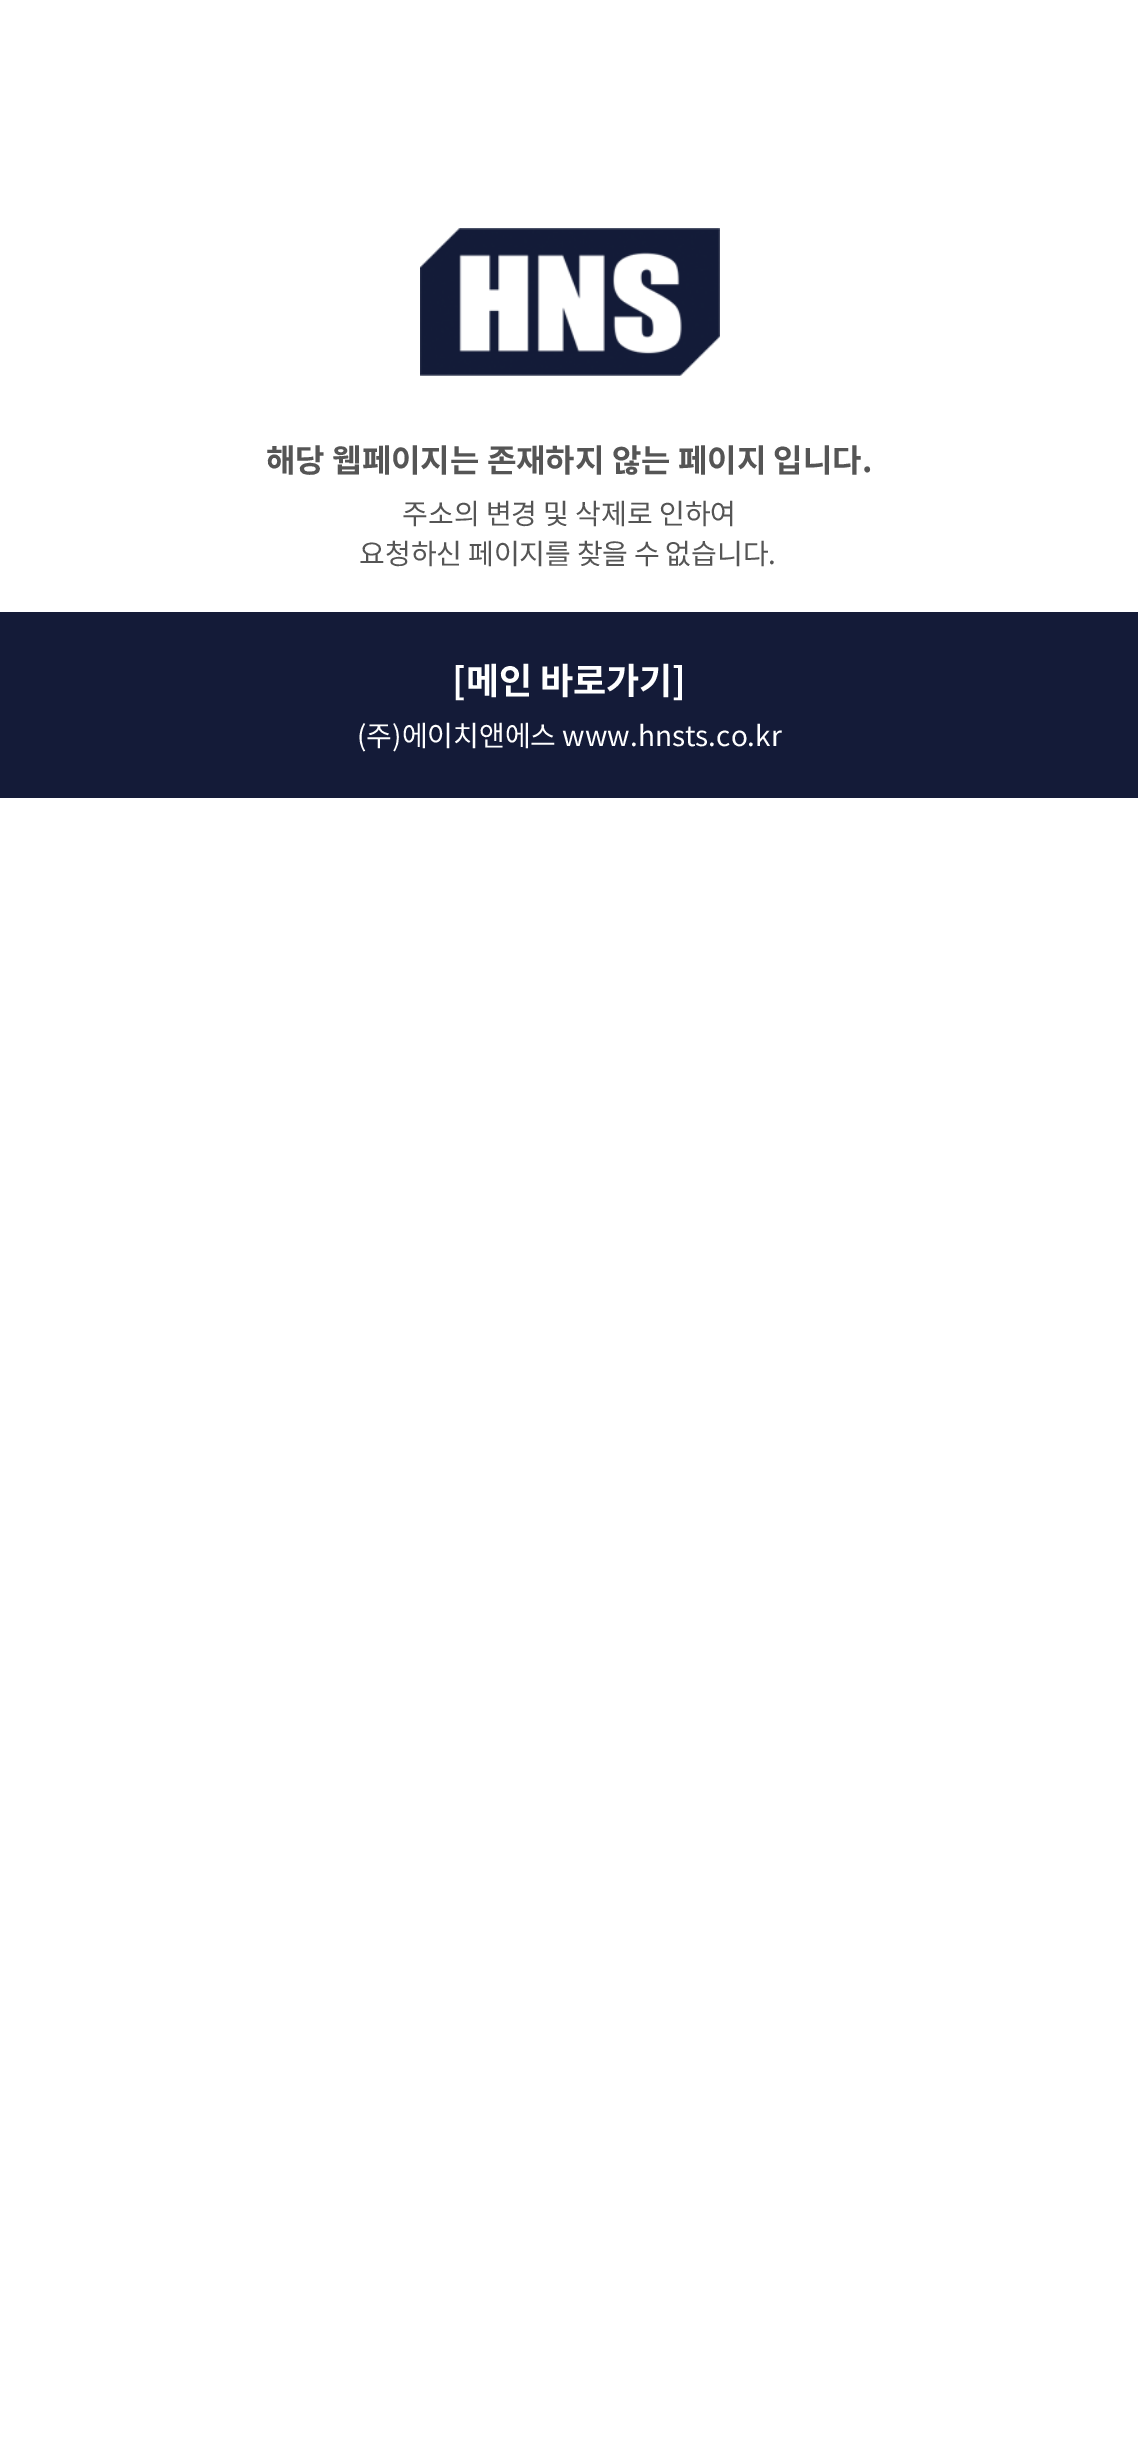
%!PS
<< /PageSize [1138 2444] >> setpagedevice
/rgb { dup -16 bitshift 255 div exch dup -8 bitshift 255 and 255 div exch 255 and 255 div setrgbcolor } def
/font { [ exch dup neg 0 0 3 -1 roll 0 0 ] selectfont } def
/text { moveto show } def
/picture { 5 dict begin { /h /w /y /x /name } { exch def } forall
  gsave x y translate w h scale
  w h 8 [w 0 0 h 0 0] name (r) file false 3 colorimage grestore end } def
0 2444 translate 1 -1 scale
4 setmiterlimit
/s1 { /NotoSansKR-Bold 32 font 16#555555 rgb } def
/s2 { /NotoSansKR-Regular 28 font 16#555555 rgb } def
/s3 { /NotoSansKR-Bold 36 font 16#FFFFFF rgb } def
/s4 { /NotoSansKR-Regular 28 font 16#FFFFFF rgb } def
16#FFFFFF rgb
0 0 1138 2444 rectfill
(pic1.raw) 420 228 300 148 picture
s1
(해당 웹페이지는 존재하지 않는 페이지 입니다.) 266 472 text
s2
(주소의 변경 및 삭제로 인하여) 402 524 text
359 564 moveto -0.5 0 32 (요청하신 페이지를 찾을 수 없습니다.) widthshow
16#141B38 rgb
0 612 1138 186 rectfill
s3
([메인 바로가기]) 452 694 text
s4
(\(주\)에이치앤에스 www.hnsts.co.kr) 357 746 text
showpage
